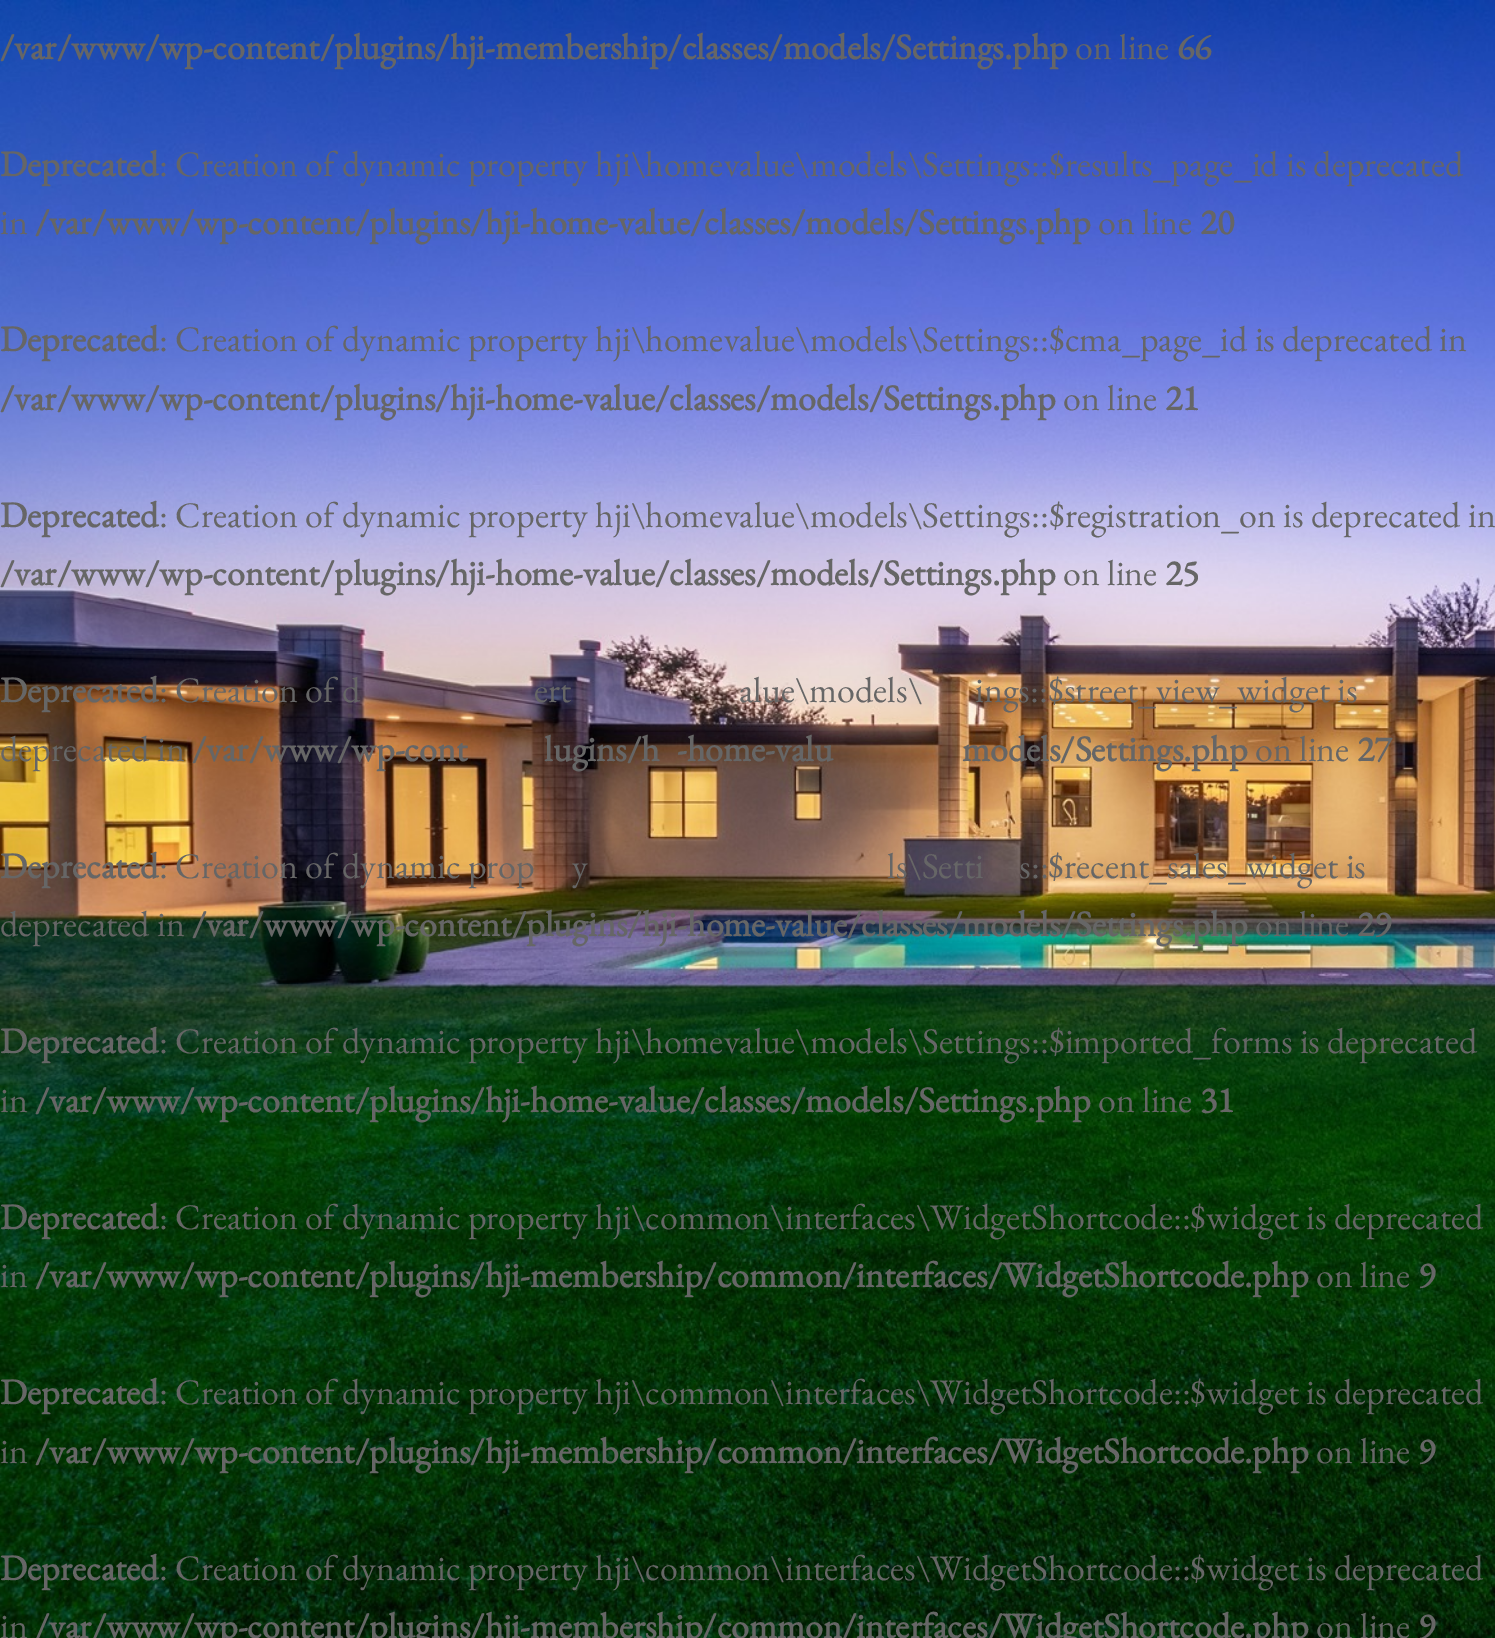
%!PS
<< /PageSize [1495 1638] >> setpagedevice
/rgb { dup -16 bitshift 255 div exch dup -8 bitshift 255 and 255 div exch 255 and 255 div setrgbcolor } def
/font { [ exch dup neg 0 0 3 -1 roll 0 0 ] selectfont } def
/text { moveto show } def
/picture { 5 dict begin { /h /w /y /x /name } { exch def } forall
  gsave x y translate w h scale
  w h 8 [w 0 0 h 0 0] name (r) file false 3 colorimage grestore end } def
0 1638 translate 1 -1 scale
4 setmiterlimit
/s1 { /EBGaramond-Bold 36 font 16#666666 rgb } def
/s2 { /EBGaramond-Regular 36 font 16#666666 rgb } def
16#FFFFFF rgb
0 0 1495 1638 rectfill
(pic1.raw) 0 0 1495 1638 picture
s1
(/var/www/wp-content/plugins/hji-membership/classes/models/Settings.php) 0 59 text
s2
(on line) 1075 59 text
s1
(66) 1177 59 text
(Deprecated) 0 176 text
s2
(: Creation of dynamic property hji\\homevalue\\models\\Settings::$results_page_id is deprecated) 159 176 text
(in) 0 234 text
s1
(/var/www/wp-content/plugins/hji-home-value/classes/models/Settings.php) 35 234 text
s2
(on line) 1098 234 text
s1
(20) 1200 234 text
(Deprecated) 0 351 text
s2
(: Creation of dynamic property hji\\homevalue\\models\\Settings::$cma_page_id is deprecated in) 159 351 text
s1
(/var/www/wp-content/plugins/hji-home-value/classes/models/Settings.php) 0 410 text
s2
(on line) 1063 410 text
s1
(21) 1165 410 text
(Deprecated) 0 527 text
s2
(: Creation of dynamic property hji\\homevalue\\models\\Settings::$registration_on is deprecated in) 159 527 text
s1
(/var/www/wp-content/plugins/hji-home-value/classes/models/Settings.php) 0 585 text
s2
(on line) 1063 585 text
s1
(25) 1165 585 text
(Deprecated) 0 702 text
s2
(: Creation of d) 159 702 text
(ert) 534 702 text
(alue\\models\\) 739 702 text
(ings::$street_view_widget is) 975 702 text
(deprecated in) 0 761 text
s1
(/var/www/wp-cont) 192 761 text
(lugins/h) 544 761 text
(-home-valu) 677 761 text
(models/Settings.php) 962 761 text
s2
(on line) 1255 761 text
s1
(27) 1357 761 text
(Deprecated) 0 878 text
s2
(: Creation of dynamic prop) 159 878 text
(y) 572 878 text
(ls\\Setti) 887 878 text
(s::$recent_sales_widget is) 1019 878 text
(deprecated in) 0 936 text
s1
(/var/www/wp-content/plugins/hji-home-value/classes/models/Settings.php) 192 936 text
s2
(on line) 1255 936 text
s1
(29) 1357 936 text
(Deprecated) 0 1053 text
s2
(: Creation of dynamic property hji\\homevalue\\models\\Settings::$imported_forms is deprecated) 159 1053 text
(in) 0 1112 text
s1
(/var/www/wp-content/plugins/hji-home-value/classes/models/Settings.php) 35 1112 text
s2
(on line) 1098 1112 text
s1
(31) 1200 1112 text
(Deprecated) 0 1229 text
s2
(: Creation of dynamic property hji\\common\\interfaces\\WidgetShortcode::$widget is deprecated) 159 1229 text
(in) 0 1287 text
s1
(/var/www/wp-content/plugins/hji-membership/common/interfaces/WidgetShortcode.php) 35 1287 text
s2
(on line) 1316 1287 text
s1
(9) 1418 1287 text
(Deprecated) 0 1404 text
s2
(: Creation of dynamic property hji\\common\\interfaces\\WidgetShortcode::$widget is deprecated) 159 1404 text
(in) 0 1463 text
s1
(/var/www/wp-content/plugins/hji-membership/common/interfaces/WidgetShortcode.php) 35 1463 text
s2
(on line) 1316 1463 text
s1
(9) 1418 1463 text
(Deprecated) 0 1580 text
s2
(: Creation of dynamic property hji\\common\\interfaces\\WidgetShortcode::$widget is deprecated) 159 1580 text
(in) 0 1638 text
s1
(/var/www/wp-content/plugins/hji-membership/common/interfaces/WidgetShortcode.php) 35 1638 text
s2
(on line) 1316 1638 text
s1
(9) 1418 1638 text
showpage
